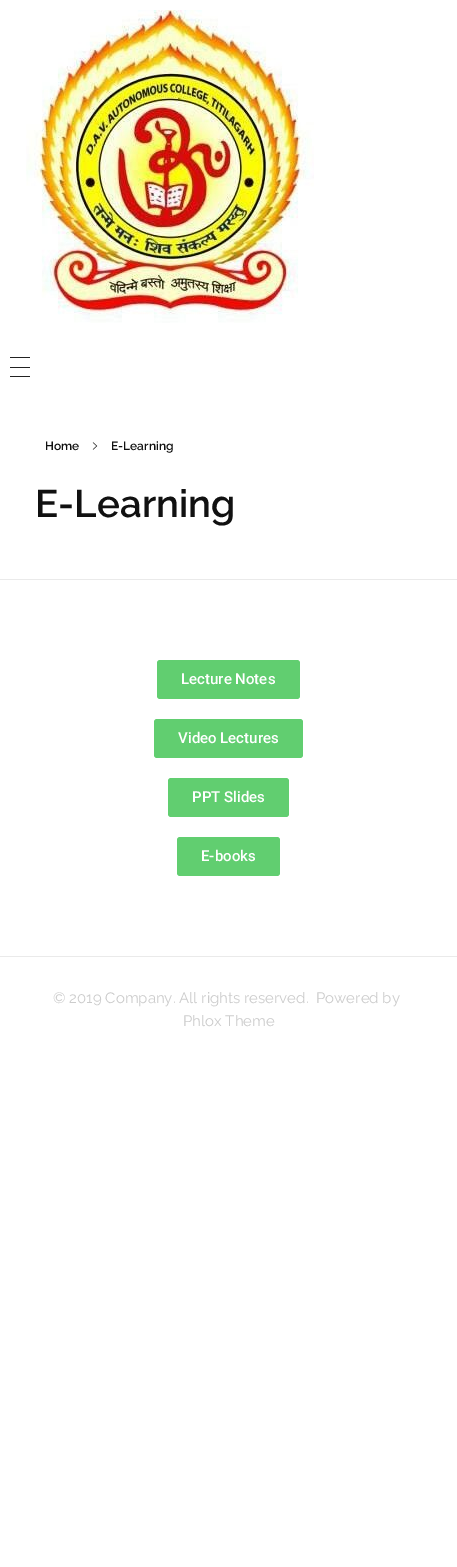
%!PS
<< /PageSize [457 1567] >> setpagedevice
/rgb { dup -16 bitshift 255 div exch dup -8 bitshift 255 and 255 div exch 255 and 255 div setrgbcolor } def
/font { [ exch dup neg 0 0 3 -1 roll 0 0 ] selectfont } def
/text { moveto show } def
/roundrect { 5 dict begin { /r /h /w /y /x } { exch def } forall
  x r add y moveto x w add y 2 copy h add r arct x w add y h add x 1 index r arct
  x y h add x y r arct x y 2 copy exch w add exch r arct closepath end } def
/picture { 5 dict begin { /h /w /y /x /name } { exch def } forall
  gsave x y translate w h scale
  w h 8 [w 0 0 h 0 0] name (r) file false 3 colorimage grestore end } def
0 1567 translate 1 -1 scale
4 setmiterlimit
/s1 { /Raleway-SemiBold 12 font 16#111111 rgb } def
/s2 { /Raleway-SemiBold 38.5 font 16#111111 rgb } def
/s3 { /Roboto-Medium 15 font 16#FFFFFF rgb } def
/s4 { /Raleway-Regular 15 font 16#CCCCCC rgb } def
16#FFFFFF rgb
0 0 457 1567 rectfill
(pic1.raw) 26 10 288 313 picture
16#222222 rgb
10 357 20 1 rectfill
10 367 20 1 rectfill
10 376 20 1 rectfill
16#EAEAEA rgb
0 579 457 1 rectfill
s1
(Home) 45 450 text
(pic2.raw) 92 442 6 8 picture
(E-Learning) 111 450 text
s2
(E-Learning) 35 517 text
16#61CE70 rgb
157 660 143 39 3 roundrect fill
s3
(Lecture Notes) 181 684 text
16#61CE70 rgb
154 719 149 39 3 roundrect fill
s3
(Video Lectures) 178 743 text
16#61CE70 rgb
168 778 121 39 3 roundrect fill
s3
(PPT Slides) 192 802 text
16#61CE70 rgb
177 837 103 39 3 roundrect fill
s3
(E-books) 201 861 text
16#EAEAEA rgb
0 956 457 1 rectfill
s4
(© 2019 Company. All rights reserved.  Powered by) 53 1003 text
(Phlox Theme) 183 1026 text
showpage
